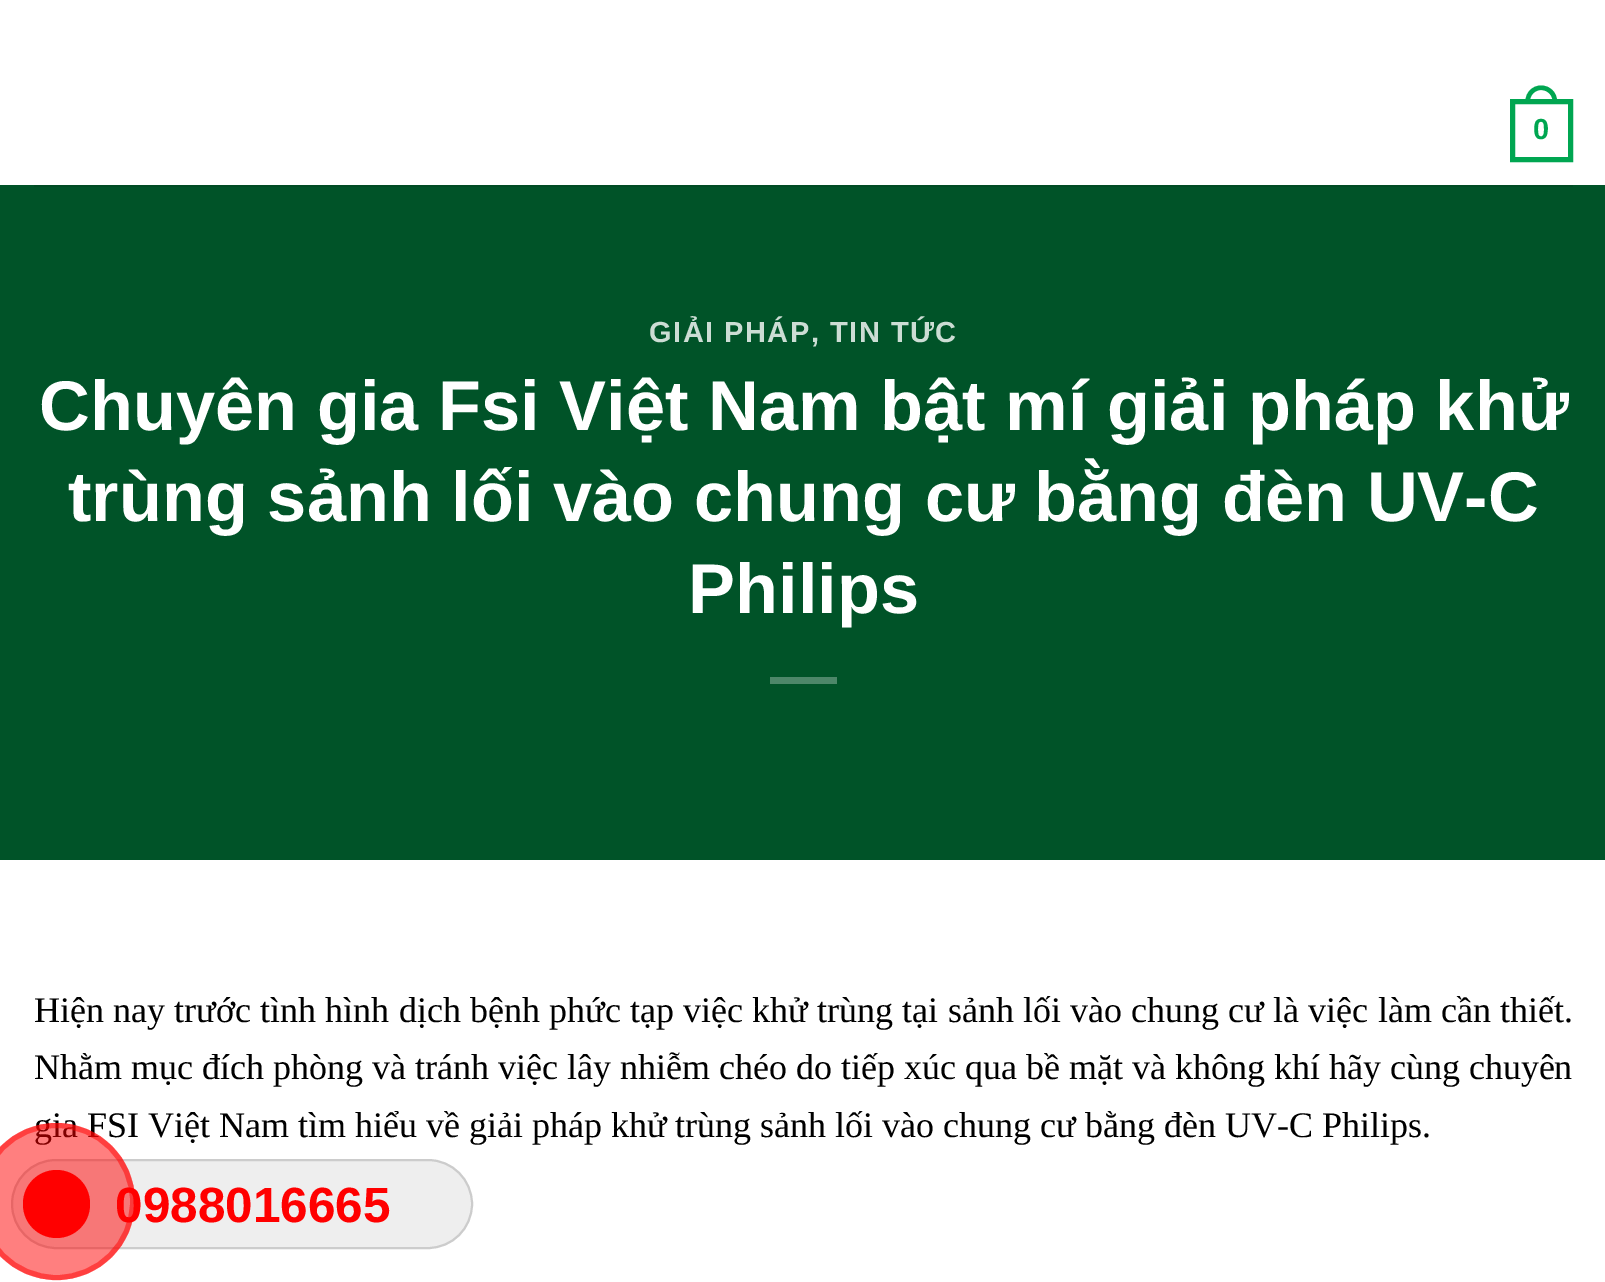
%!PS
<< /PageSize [1605 1282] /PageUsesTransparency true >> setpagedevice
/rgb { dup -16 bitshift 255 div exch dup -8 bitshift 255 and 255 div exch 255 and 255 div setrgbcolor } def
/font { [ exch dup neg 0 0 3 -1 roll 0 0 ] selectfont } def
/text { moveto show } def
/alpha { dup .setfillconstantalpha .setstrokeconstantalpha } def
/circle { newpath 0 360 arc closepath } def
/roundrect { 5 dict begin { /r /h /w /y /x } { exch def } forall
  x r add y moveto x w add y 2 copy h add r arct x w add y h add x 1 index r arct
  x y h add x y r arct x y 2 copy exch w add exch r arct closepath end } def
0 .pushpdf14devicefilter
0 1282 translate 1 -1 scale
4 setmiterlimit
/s1 { /LiberationSans-Bold 29 font 16#00A651 rgb } def
/s2 { /LiberationSans-Bold 70.4 font 16#FFFFFF rgb } def
/s3 { /LiberationSerif-Regular 36 font 16#000000 rgb } def
/s4 { /LiberationSans-Bold 49.5 font 16#FF0000 rgb } def
16#FFFFFF rgb
0 0 1605 1282 rectfill
16#00A651 rgb
5 setlinewidth
1512.5 101.5 58 58 rectstroke
1541 85.5 moveto 1550 85.5 1557 92.5 1557 101 curveto 1557 103.5 lineto 1525.5 103.5 lineto 1525.5 101 lineto 1525.5 92.5 1532.5 85.5 1541 85.5 curveto closepath 1541 90 moveto 1547.5 90 1552.5 95 1552.5 101 curveto 1552.5 103.5 lineto 1530 103.5 lineto 1530 101 lineto 1530 95 1535 90 1541 90 curveto closepath eofill
s1
(0) 1533 139 text
16#005328 rgb
0 185 1605 675 rectfill
16#004B24 rgb
34 185 1539 2 rectfill
16#CCDDD4 rgb
649 342 moveto 1.5 0 (GIẢI PHÁP, TIN TỨC) ashow
s2
(Chuyên gia Fsi Việt Nam bật mí giải pháp khử) 39 430 text
(trùng sảnh lối vào chung cư bằng đèn UV-C) 68 521 text
(Philips) 688 613 text
16#4D8769 rgb
770 677 67 7 rectfill
/LiberationSerif-Regular 36 font
16#000000 rgb
34 1022 moveto 0.25 0 32 (Hiện nay trước tình hình dịch bệnh phức tạp việc khử trùng tại sảnh lối vào chung cư là việc làm cần thiết.) widthshow
(Nhằm mục đích phòng và tránh việc lây nhiễm chéo do tiếp xúc qua bề mặt và không khí hãy cùng chuyên) 34 1079 text
(gia FSI Việt Nam tìm hiểu về giải pháp khử trùng sảnh lối vào chung cư bằng đèn UV-C Philips.) 34 1137 text
16#EEEEEE rgb
12 1160 460 88 44 roundrect gsave fill grestore
16#CCCCCC rgb
2 setlinewidth
stroke
s4
(0988016665) 115 1222 text
0.5 alpha
56.5 1201.5 78.5 circle fill
5 setlinewidth
56.5 1201.5 76 circle stroke
1 alpha
23 1170 67 68 33.5 roundrect fill
.poppdf14devicefilter showpage
